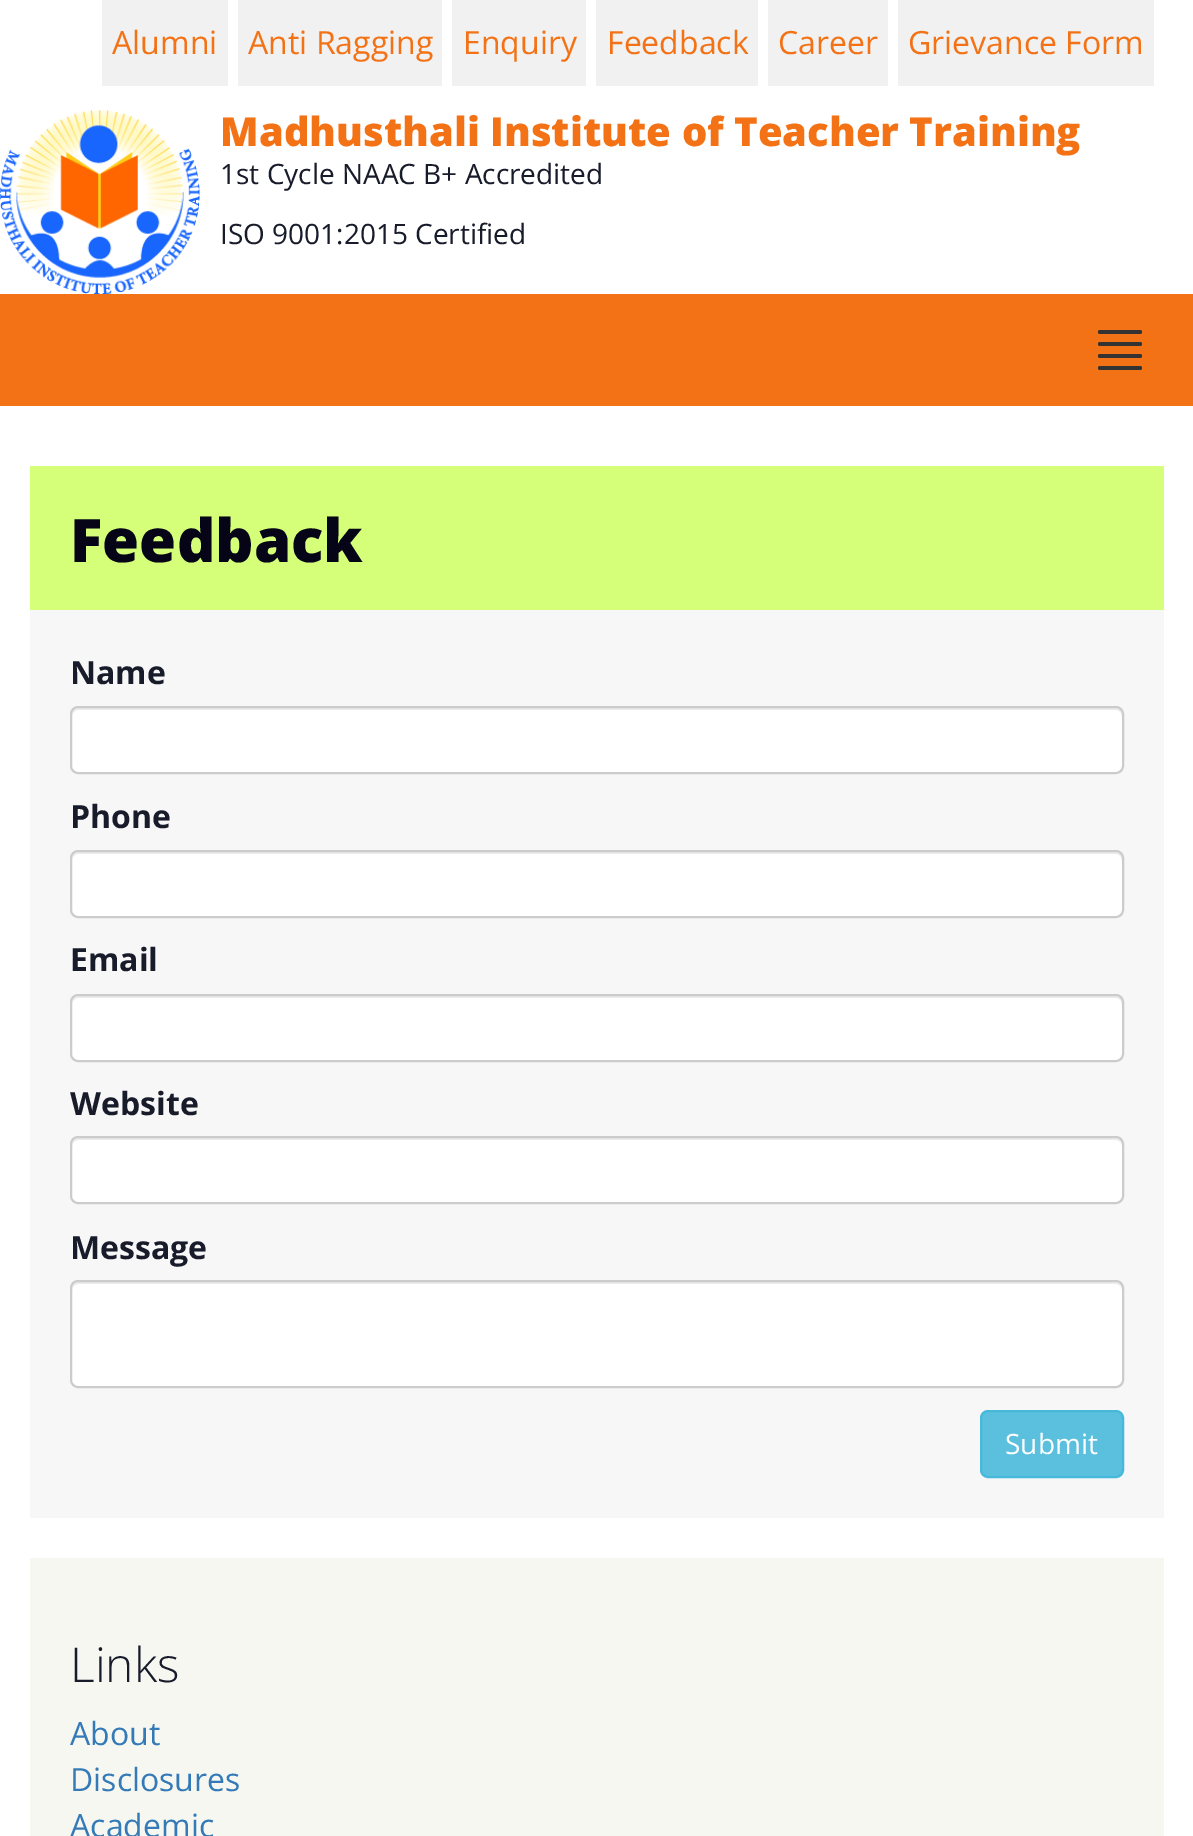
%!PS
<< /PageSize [1193 1836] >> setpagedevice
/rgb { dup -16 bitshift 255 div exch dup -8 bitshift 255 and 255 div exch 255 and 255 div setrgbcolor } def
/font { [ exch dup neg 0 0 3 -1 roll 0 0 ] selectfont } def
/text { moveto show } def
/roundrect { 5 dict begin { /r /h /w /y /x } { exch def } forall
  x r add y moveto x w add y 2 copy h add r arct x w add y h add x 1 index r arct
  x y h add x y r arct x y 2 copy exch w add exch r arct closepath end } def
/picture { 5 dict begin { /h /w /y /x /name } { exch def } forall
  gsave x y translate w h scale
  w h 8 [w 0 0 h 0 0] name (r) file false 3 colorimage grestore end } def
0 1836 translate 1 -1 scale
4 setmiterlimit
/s1 { /OpenSans-Regular 32 font 16#F47216 rgb } def
/s2 { /OpenSans-ExtraBold 40 font 16#F47216 rgb } def
/s3 { /OpenSans-Regular 28 font 16#171B2A rgb } def
/s4 { /OpenSans-ExtraBold 60 font 16#050517 rgb } def
/s5 { /OpenSans-Bold 32 font 16#171B2A rgb } def
/s6 { /OpenSans-Regular 28 font 16#FFFFFF rgb } def
/s7 { /OpenSans-Light 48 font 16#171B2A rgb } def
/s8 { /OpenSans-Regular 32 font 16#337AB7 rgb } def
16#FFFFFF rgb
0 0 1193 1836 rectfill
16#F1F1F1 rgb
102 0 126 86 rectfill
s1
(Alumni) 112 54 text
16#F1F1F1 rgb
238 0 204 86 rectfill
s1
(Anti Ragging) 248 54 text
16#F1F1F1 rgb
452 0 134 86 rectfill
s1
(Enquiry) 463 54 text
16#F1F1F1 rgb
596 0 162 86 rectfill
s1
(Feedback) 607 54 text
16#F1F1F1 rgb
768 0 120 86 rectfill
s1
(Career) 778 54 text
16#F1F1F1 rgb
898 0 256 86 rectfill
s1
(Grievance Form) 908 54 text
(pic1.raw) 0 110 200 184 picture
s2
(Madhusthali Institute of Teacher Training) 220 146 text
s3
(1st Cycle NAAC B+ Accredited) 220 184 text
(ISO 9001:2015 Certified) 220 244 text
16#F47216 rgb
0 294 1193 112 rectfill
16#333333 rgb
1098 330 44 4 2 roundrect fill
1098 342 44 4 2 roundrect fill
1098 354 44 4 2 roundrect fill
1098 366 44 4 2 roundrect fill
16#D6FF79 rgb
30 466 1134 144 rectfill
s4
(Feedback) 70 562 text
16#F7F7F7 rgb
30 610 1134 908 rectfill
s5
(Name) 70 684 text
16#FFFFFF rgb
70 706 1054 68 8 roundrect fill
16#ECECEC rgb
78 710 moveto 1116 710 lineto 1119 710 1122 713 1122 716 curveto 1122 714 lineto 1122 711 1119 708 1116 708 curveto 78 708 lineto 75 708 72 711 72 714 curveto 72 716 lineto 72 713 75 710 78 710 curveto closepath fill
16#CCCCCC rgb
2 setlinewidth
71 707 1052 66 7 roundrect stroke
s5
(Phone) 70 828 text
16#FFFFFF rgb
70 850 1054 68 8 roundrect fill
16#ECECEC rgb
78 854 moveto 1116 854 lineto 1119 854 1122 857 1122 860 curveto 1122 858 lineto 1122 855 1119 852 1116 852 curveto 78 852 lineto 75 852 72 855 72 858 curveto 72 860 lineto 72 857 75 854 78 854 curveto closepath fill
16#CCCCCC rgb
71 851 1052 66 7 roundrect stroke
s5
(Email) 70 971 text
16#FFFFFF rgb
70 994 1054 68 8 roundrect fill
16#ECECEC rgb
78 998 moveto 1116 998 lineto 1119 998 1122 1001 1122 1004 curveto 1122 1002 lineto 1122 999 1119 996 1116 996 curveto 78 996 lineto 75 996 72 999 72 1002 curveto 72 1004 lineto 72 1001 75 998 78 998 curveto closepath fill
16#CCCCCC rgb
71 995 1052 66 7 roundrect stroke
s5
(Website) 70 1115 text
16#FFFFFF rgb
70 1136 1054 68 8 roundrect fill
16#ECECEC rgb
78 1140 moveto 1116 1140 lineto 1119 1140 1122 1143 1122 1146 curveto 1122 1144 lineto 1122 1141 1119 1138 1116 1138 curveto 78 1138 lineto 75 1138 72 1141 72 1144 curveto 72 1146 lineto 72 1143 75 1140 78 1140 curveto closepath fill
16#CCCCCC rgb
71 1137 1052 66 7 roundrect stroke
s5
(Message) 70 1259 text
16#FFFFFF rgb
70 1280 1054 108 8 roundrect fill
16#ECECEC rgb
78 1284 moveto 1116 1284 lineto 1119 1284 1122 1287 1122 1290 curveto 1122 1288 lineto 1122 1285 1119 1282 1116 1282 curveto 78 1282 lineto 75 1282 72 1285 72 1288 curveto 72 1290 lineto 72 1287 75 1284 78 1284 curveto closepath fill
16#CCCCCC rgb
71 1281 1052 106 7 roundrect stroke
16#5BC0DE rgb
981 1411 142 66 7 roundrect gsave fill grestore
16#46B8DA rgb
stroke
s6
(Submit) 1005 1454 text
16#F7F7F2 rgb
30 1558 1134 278 rectfill
s7
(Links) 70 1682 text
s8
(About) 70 1745 text
(Disclosures) 70 1791 text
(Academic) 70 1837 text
showpage
